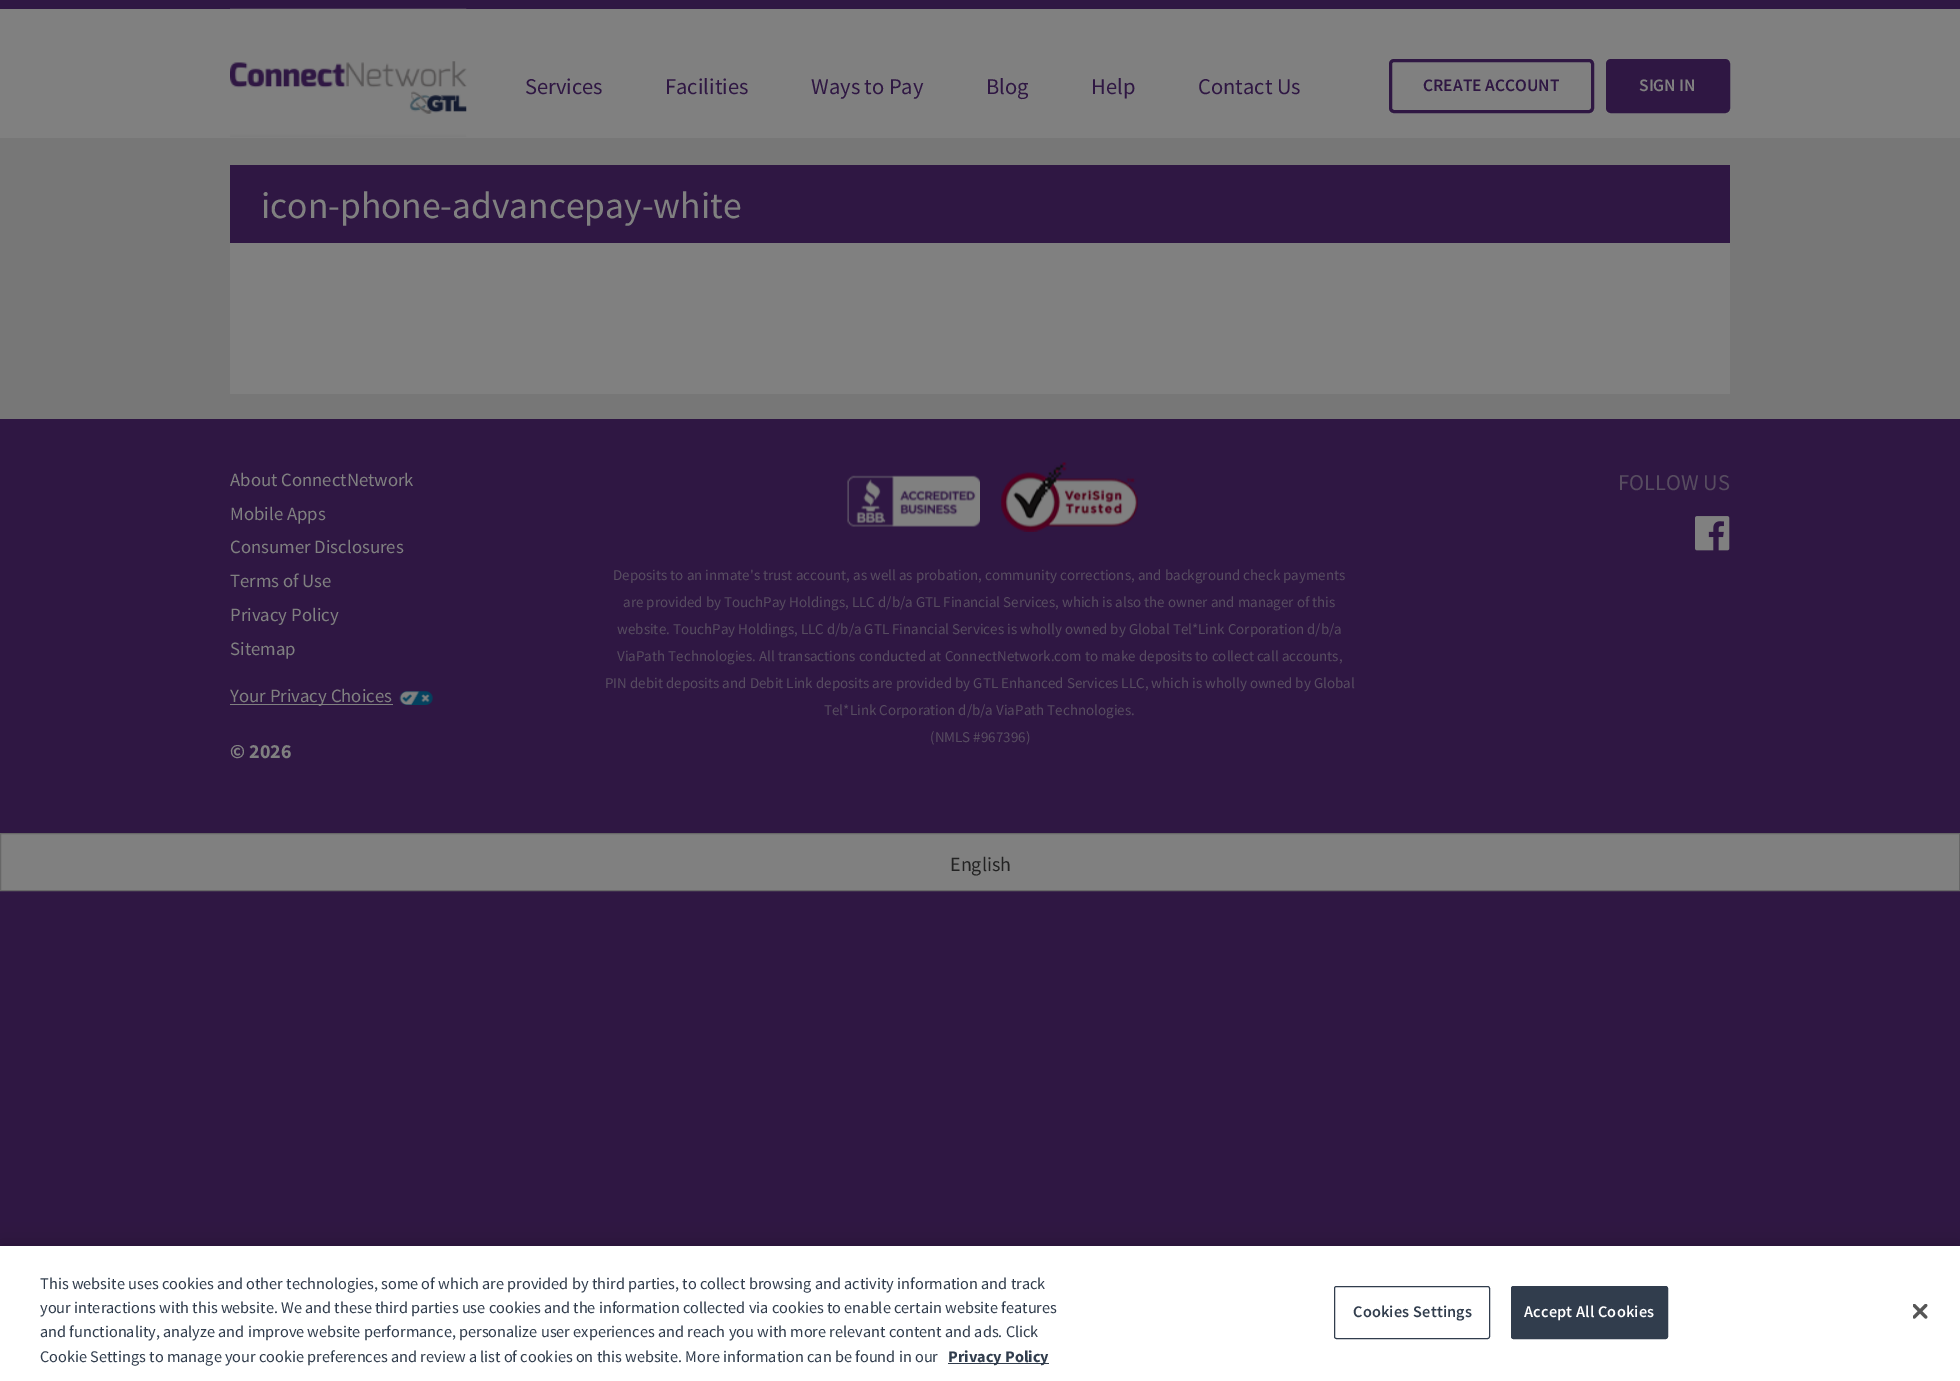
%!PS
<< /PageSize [1960 1381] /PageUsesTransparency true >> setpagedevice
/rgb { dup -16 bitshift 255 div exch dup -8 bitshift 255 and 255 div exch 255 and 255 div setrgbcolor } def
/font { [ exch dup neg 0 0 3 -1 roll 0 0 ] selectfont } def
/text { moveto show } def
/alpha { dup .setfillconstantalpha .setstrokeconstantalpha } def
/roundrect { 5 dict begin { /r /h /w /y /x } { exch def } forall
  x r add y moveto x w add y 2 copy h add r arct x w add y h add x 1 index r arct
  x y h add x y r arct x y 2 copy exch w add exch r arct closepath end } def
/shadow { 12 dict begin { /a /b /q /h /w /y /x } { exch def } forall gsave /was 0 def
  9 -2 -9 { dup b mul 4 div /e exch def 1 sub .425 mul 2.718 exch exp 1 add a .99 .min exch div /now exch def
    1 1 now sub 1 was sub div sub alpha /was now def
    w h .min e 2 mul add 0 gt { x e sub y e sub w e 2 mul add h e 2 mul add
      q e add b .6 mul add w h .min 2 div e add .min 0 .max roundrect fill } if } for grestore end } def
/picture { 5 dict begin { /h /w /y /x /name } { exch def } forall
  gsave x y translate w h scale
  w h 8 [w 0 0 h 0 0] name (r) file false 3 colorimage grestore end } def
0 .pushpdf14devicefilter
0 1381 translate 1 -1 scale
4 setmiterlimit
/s1 { /SourceSansPro-Regular 22.5 font 16#2F1743 rgb } def
/s2 { /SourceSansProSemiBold-SemiBold 17.5 font 16#2F1743 rgb } def
/s3 { /SourceSansProSemiBold-SemiBold 17.5 font 16#808080 rgb } def
/s4 { /SourceSansPro-Regular 37.5 font 16#808080 rgb } def
/s5 { /SourceSansPro-Regular 18.75 font 16#808080 rgb } def
/s6 { /SourceSansPro-Bold 20 font 16#808080 rgb } def
/s7 { /SourceSansPro-Regular 22.5 font 16#574C60 rgb } def
/s8 { /SourceSansPro-Regular 15 font 16#574C60 rgb } def
/s9 { /SourceSansPro-Regular 20 font 16#222222 rgb } def
/s10 { /SourceSansPro-Regular 16.25 font 16#313D4D rgb } def
/s11 { /SourceSansPro-Bold 16.25 font 16#313D4D rgb } def
16#2F1743 rgb
0 0 1960 1381 rectfill
16#777777 rgb
0 138 1960 281 rectfill
16#808080 rgb
0 9 1960 129 rectfill
(pic1.raw) 230 8 237 129 picture
s1
(Services) 525 94 text
(Facilities) 665 94 text
(Ways to Pay) 811 94 text
(Blog) 986 94 text
(Help) 1091 94 text
(Contact Us) 1198 94 text
3 setlinewidth
1390.5 60.5 202 51 3.5 roundrect stroke
s2
(CREATE ACCOUNT) 1423 91 text
1607.5 60.5 121 51 3.5 roundrect gsave fill grestore
stroke
s3
(SIGN IN) 1639 91 text
16#2F1743 rgb
230 165 1500 78 rectfill
s4
(icon-phone-advancepay-white) 261 218 text
230 243 1500 151 rectfill
s5
(About ConnectNetwork) 230 486 text
(Mobile Apps) 230 520 text
(Consumer Disclosures) 230 553 text
(Terms of Use) 230 587 text
(Privacy Policy) 230 621 text
(Sitemap) 230 655 text
230 704 163 1 rectfill
(Your Privacy Choices) 230 702 text
(pic2.raw) 399 691 34 14 picture
s6
(© 2026) 230 758 text
s7
(FOLLOW US) 1618 490 text
(pic3.raw) 1695 516 35 35 picture
(pic4.raw) 847 475 133 52 picture
(pic5.raw) 1001 462 137 70 picture
s8
(Deposits to an inmate's trust account, as well as probation, community corrections, and background check payments) 613 580 text
(are provided by TouchPay Holdings, LLC d/b/a GTL Financial Services, which is also the owner and manager of this) 623 607 text
(website. TouchPay Holdings, LLC d/b/a GTL Financial Services is wholly owned by Global Tel*Link Corporation d/b/a) 617 634 text
(ViaPath Technologies. All transactions conducted at ConnectNetwork.com to make deposits to collect call accounts,) 617 661 text
(PIN debit deposits and Debit Link deposits are provided by GTL Enhanced Services LLC, which is wholly owned by Global) 605 688 text
(Tel*Link Corporation d/b/a ViaPath Technologies.) 824 715 text
(\(NMLS #967396\)) 930 742 text
16#808080 rgb
0.5 833.5 moveto 1959.5 833.5 lineto 1959.5 890.5 lineto 0.5 890.5 lineto closepath gsave fill grestore
16#676767 rgb
1 setlinewidth
stroke
s9
(English) 950 871 text
16#000000 rgb
0 1246 1960 135 0 11 0.2 shadow
16#FFFFFF rgb
0 1246 1960 135 rectfill
s10
(This website uses cookies and other technologies, some of which are provided by third parties, to collect browsing and activity information and track) 40 1289 text
(your interactions with this website. We and these third parties use cookies and the information collected via cookies to enable certain website features) 40 1313 text
(and functionality, analyze and improve website performance, personalize user experiences and reach you with more relevant content and ads. Click) 40 1337 text
(Cookie Settings to manage your cookie preferences and review a list of cookies on this website. More information can be found in our) 40 1362 text
948 1363 101 1 rectfill
s11
(Privacy Policy) 948 1362 text
1334.5 1286.5 155 52 2 roundrect stroke
/SourceSansProSemiBold-SemiBold 16.25 font
1353 1317 moveto 0.2 0 (Cookies Settings) ashow
1511.5 1286.5 156 52 2 roundrect gsave fill grestore
stroke
16#FFFFFF rgb
1524 1317 moveto 0.2 0 (Accept All Cookies) ashow
(pic6.raw) 1913 1304 15 15 picture
.poppdf14devicefilter showpage
